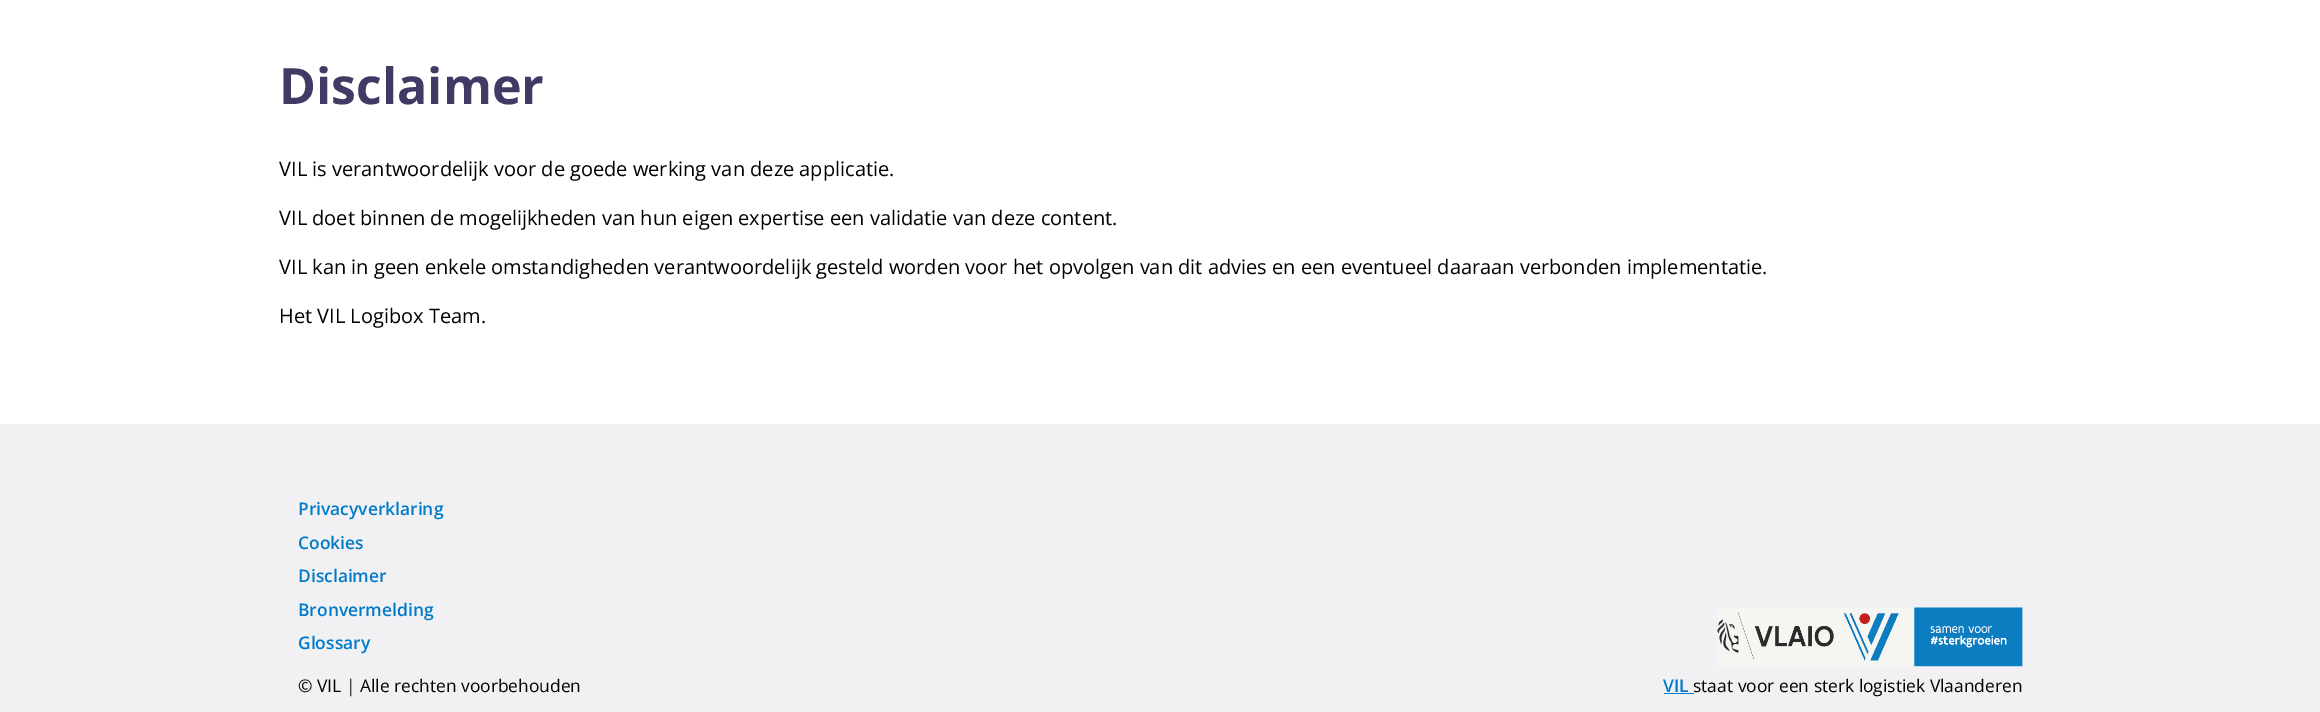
%!PS
<< /PageSize [2320 712] >> setpagedevice
/rgb { dup -16 bitshift 255 div exch dup -8 bitshift 255 and 255 div exch 255 and 255 div setrgbcolor } def
/font { [ exch dup neg 0 0 3 -1 roll 0 0 ] selectfont } def
/text { moveto show } def
/picture { 5 dict begin { /h /w /y /x /name } { exch def } forall
  gsave x y translate w h scale
  w h 8 [w 0 0 h 0 0] name (r) file false 3 colorimage grestore end } def
0 712 translate 1 -1 scale
4 setmiterlimit
/s1 { /OpenSans-Bold 50 font 16#403B65 rgb } def
/s2 { /OpenSans-Regular 20 font 16#000000 rgb } def
/s3 { /OpenSans-SemiBold 17.4 font 16#007AC9 rgb } def
/s4 { /OpenSans-Regular 17.4 font 16#000000 rgb } def
16#FFFFFF rgb
0 0 2320 712 rectfill
s1
(Disclaimer) 279 104 text
s2
(VIL is verantwoordelijk voor de goede werking van deze applicatie.) 279 176 text
(VIL doet binnen de mogelijkheden van hun eigen expertise een validatie van deze content.) 279 225 text
(VIL kan in geen enkele omstandigheden verantwoordelijk gesteld worden voor het opvolgen van dit advies en een eventueel daaraan verbonden implementatie.) 279 274 text
(Het VIL Logibox Team.) 279 323 text
16#F1F1F4 rgb
0 424 2320 288 rectfill
s3
(Privacyverklaring) 298 515 text
(Cookies) 298 549 text
(Disclaimer) 298 582 text
(Bronvermelding) 298 616 text
(Glossary) 298 649 text
s4
(© VIL | Alle rechten voorbehouden) 298 692 text
(pic1.raw) 1717 607 306 60 picture
s3
(VIL) 1663 692 text
1664 693 30 1 rectfill
s4
(staat voor een sterk logistiek Vlaanderen) 1693 692 text
showpage
